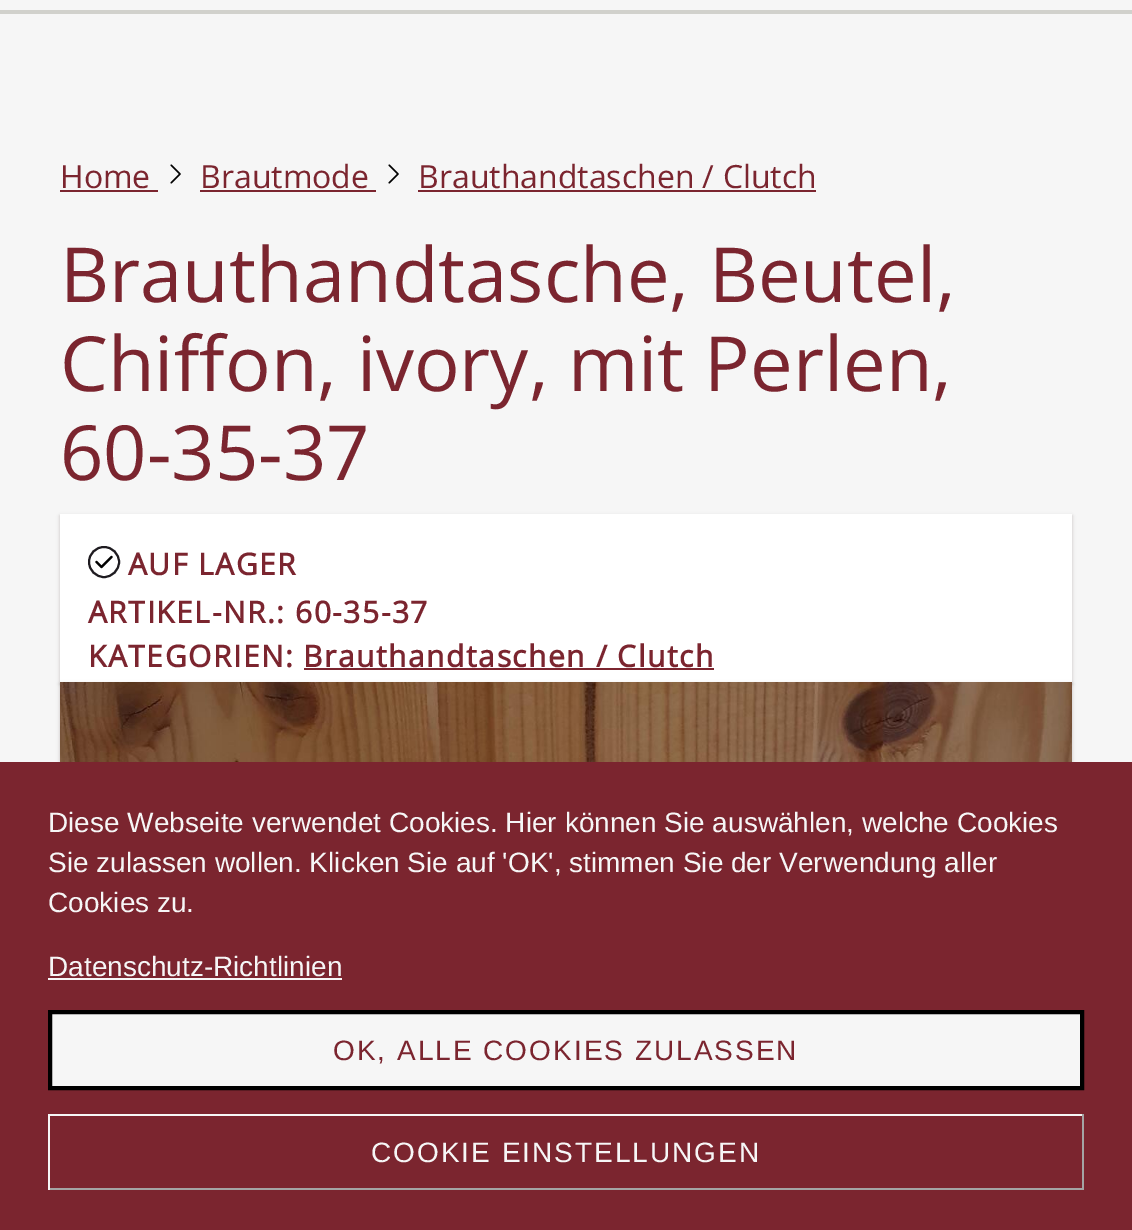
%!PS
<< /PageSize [1132 1230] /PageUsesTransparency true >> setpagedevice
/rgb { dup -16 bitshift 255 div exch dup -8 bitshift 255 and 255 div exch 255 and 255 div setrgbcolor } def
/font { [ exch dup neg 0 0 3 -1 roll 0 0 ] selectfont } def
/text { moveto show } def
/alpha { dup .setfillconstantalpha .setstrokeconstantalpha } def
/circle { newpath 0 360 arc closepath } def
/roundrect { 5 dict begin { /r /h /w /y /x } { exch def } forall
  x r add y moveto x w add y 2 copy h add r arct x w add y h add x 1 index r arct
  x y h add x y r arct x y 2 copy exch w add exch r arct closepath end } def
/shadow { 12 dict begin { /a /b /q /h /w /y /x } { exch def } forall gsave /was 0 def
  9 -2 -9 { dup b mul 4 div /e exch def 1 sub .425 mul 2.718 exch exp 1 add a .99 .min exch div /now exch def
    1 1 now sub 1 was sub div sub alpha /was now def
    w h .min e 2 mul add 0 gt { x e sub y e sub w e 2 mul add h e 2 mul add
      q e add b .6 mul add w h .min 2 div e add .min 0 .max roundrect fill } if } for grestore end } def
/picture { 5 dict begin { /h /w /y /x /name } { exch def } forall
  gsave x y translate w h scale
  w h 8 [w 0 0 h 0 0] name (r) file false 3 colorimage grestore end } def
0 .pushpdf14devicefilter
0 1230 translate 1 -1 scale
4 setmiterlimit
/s1 { /OpenSans-Regular 32 font 16#7B252F rgb } def
/s2 { /OpenSans-Regular 76 font 16#7B252F rgb } def
/s3 { /LiberationSans-Regular 28 font 16#F6F6F6 rgb } def
16#F6F6F6 rgb
0 0 1132 1230 rectfill
16#D1D1CC rgb
0 10 1132 4 rectfill
s1
(Home) 60 188 text
60 190 98 2 rectfill
(pic1.raw) 170 164 11 20 picture
(Brautmode) 200 188 text
200 190 176 2 rectfill
(pic1.raw) 388 164 11 20 picture
(Brauthandtaschen / Clutch) 418 188 text
418 190 398 2 rectfill
s2
(Brauthandtasche, Beutel,) 60 302 text
(Chiffon, ivory, mit Perlen,) 60 391 text
(60-35-37) 60 480 text
16#1E130C rgb
60 516 1012 168 0 1 0.1 shadow
60 516 1012 168 0 2 0.15 shadow
16#FFFFFF rgb
60 514 1012 168 rectfill
16#1E1B20 rgb
2 setlinewidth
104 562 15 circle stroke
(pic2.raw) 95 555 18 14 picture
/OpenSans-Bold 30 font
16#7B252F rgb
128 575 moveto 1.5 0 (AUF LAGER) ashow
88 623 moveto 1.5 0 (ARTIKEL-NR.: 60-35-37) ashow
88 667 moveto 1.5 0 (KATEGORIEN: Brauthandtaschen / Clutch) ashow
304 668 410 2 rectfill
16#1E130C rgb
60 684 1012 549 0 1 0.1 shadow
60 684 1012 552 0 2 0.15 shadow
(pic3.raw) 60 682 1012 80 picture
16#7B252F rgb
0 762 1132 468 rectfill
s3
(Diese Webseite verwendet Cookies. Hier können Sie auswählen, welche Cookies) 48 832 text
(Sie zulassen wollen. Klicken Sie auf 'OK', stimmen Sie der Verwendung aller) 48 872 text
(Cookies zu.) 48 912 text
(Datenschutz-Richtlinien) 48 976 text
48 978 294 2 rectfill
50 1012 moveto 1082 1012 lineto 1082 1088 lineto 50 1088 lineto closepath gsave fill grestore
16#000000 rgb
4 setlinewidth
stroke
16#7B252F rgb
333 1060 moveto 2 0 (OK, ALLE COOKIES ZULASSEN) ashow
16#F6F6F6 rgb
48 1114 1036 2 rectfill
16#A4A4A4 rgb
1082 1114 2 76 rectfill
48 1188 1036 2 rectfill
16#F6F6F6 rgb
48 1114 2 76 rectfill
371 1162 moveto 2 0 (COOKIE EINSTELLUNGEN) ashow
.poppdf14devicefilter showpage
